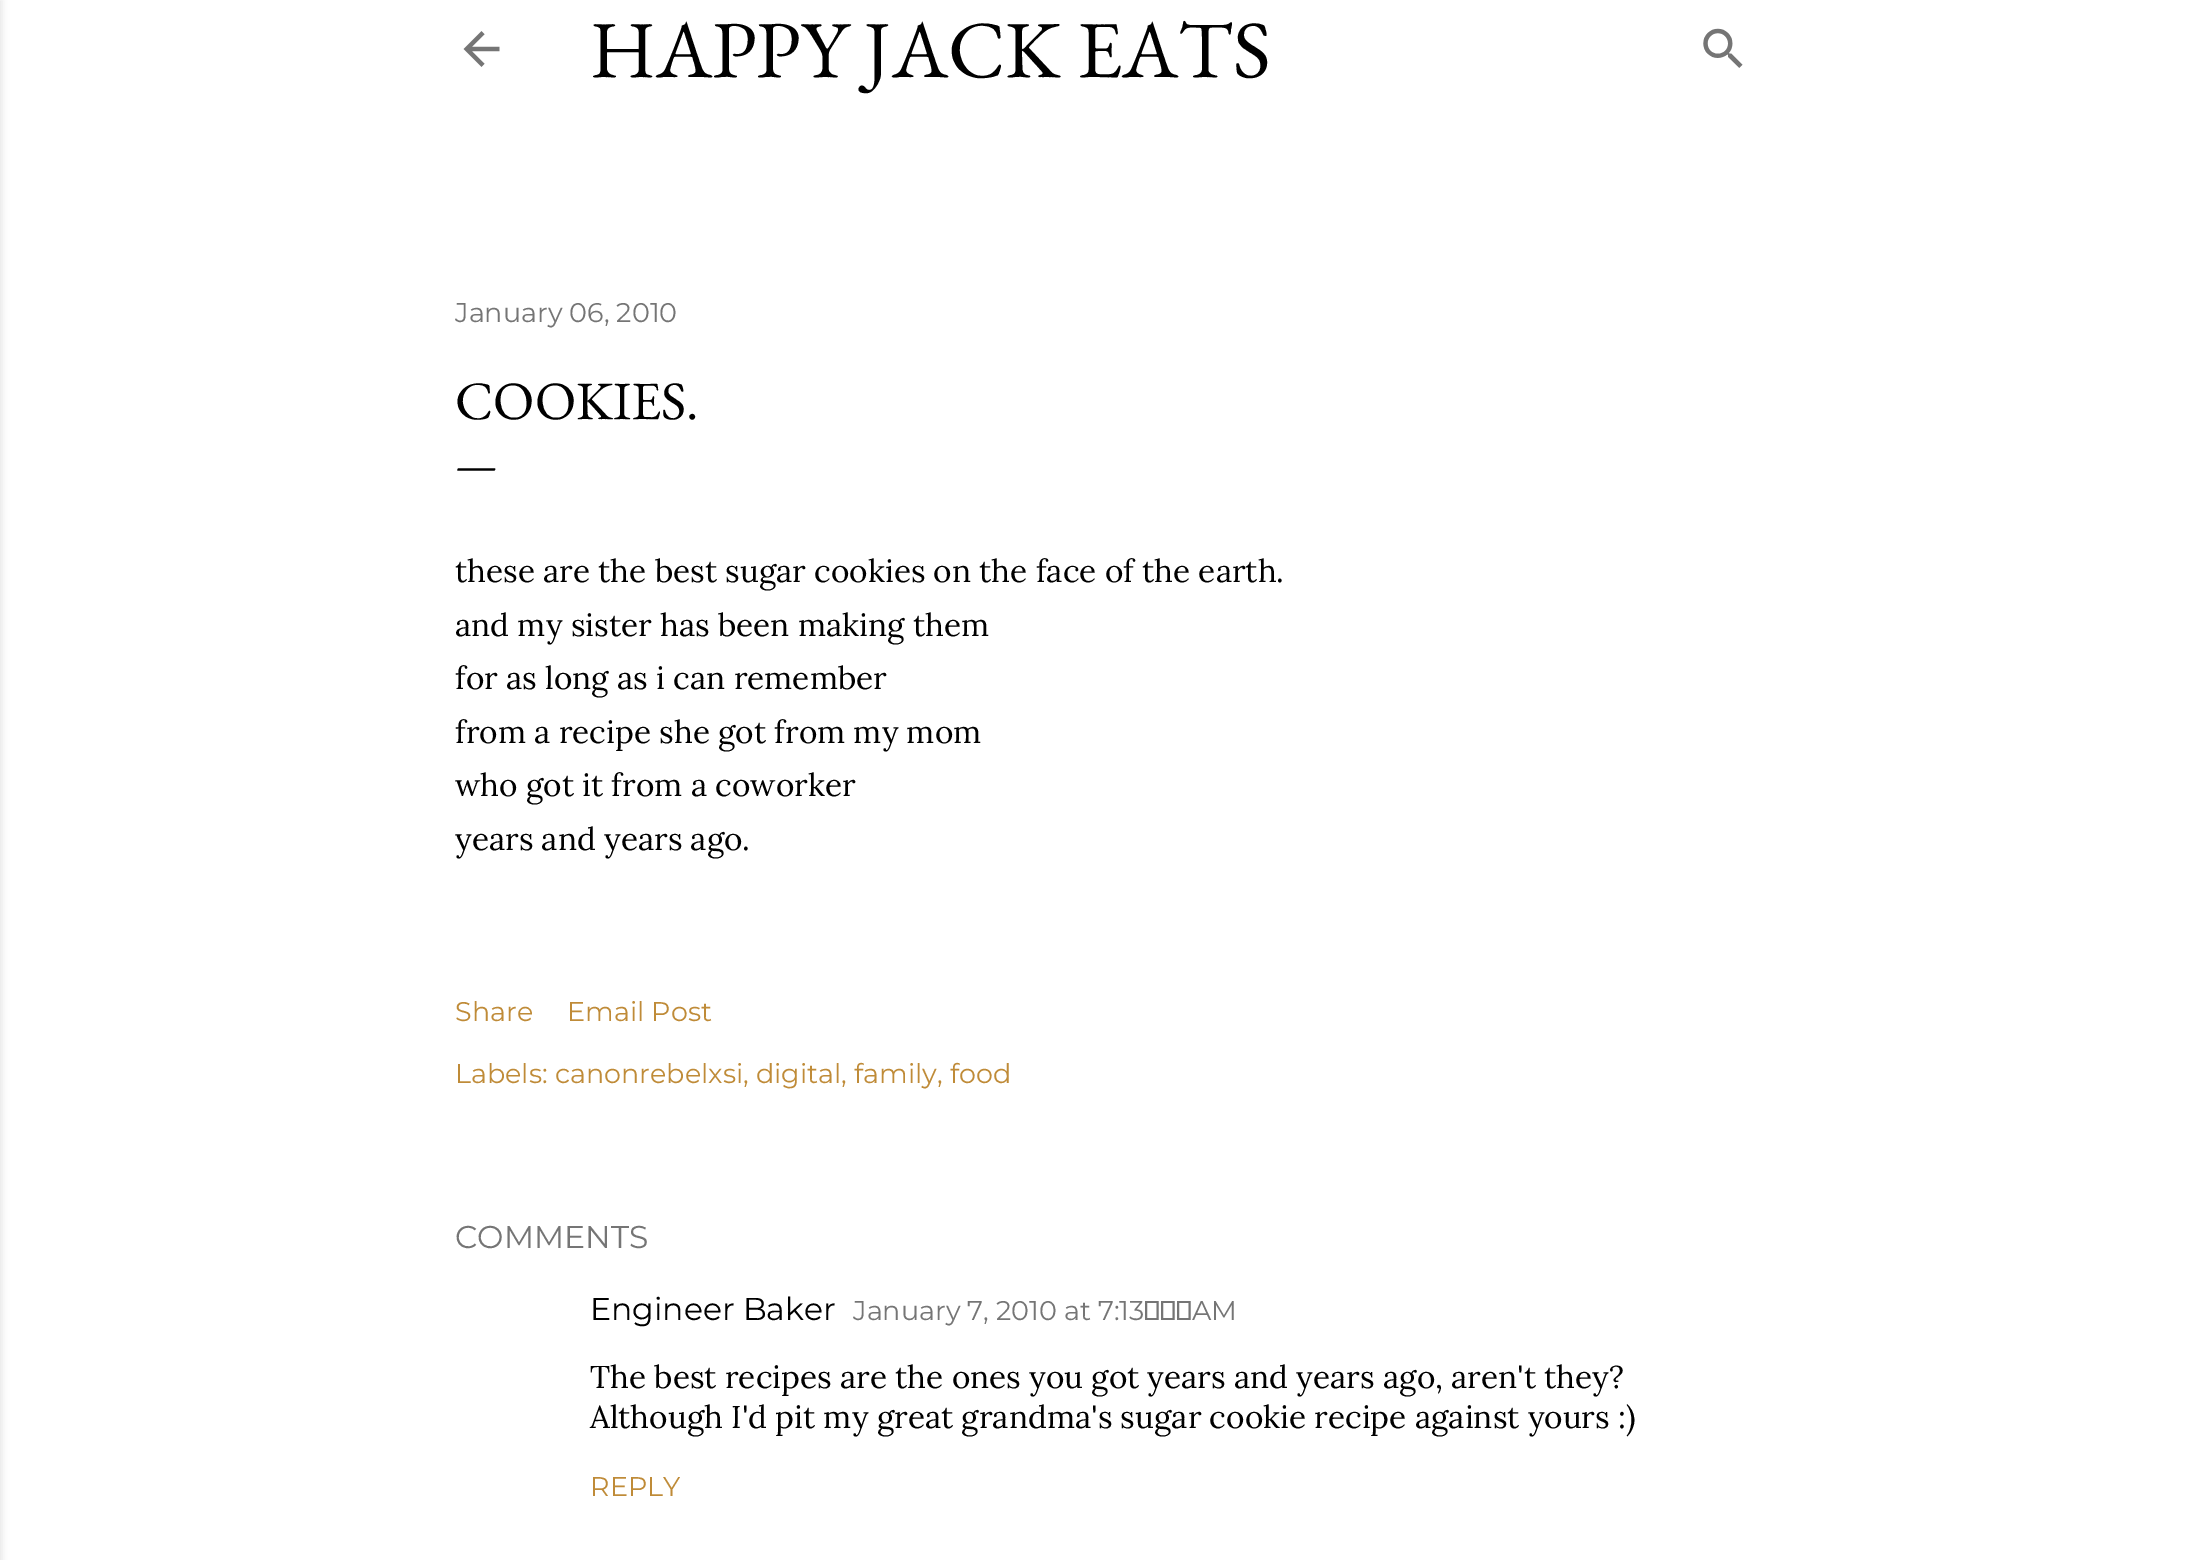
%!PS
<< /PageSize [2204 1560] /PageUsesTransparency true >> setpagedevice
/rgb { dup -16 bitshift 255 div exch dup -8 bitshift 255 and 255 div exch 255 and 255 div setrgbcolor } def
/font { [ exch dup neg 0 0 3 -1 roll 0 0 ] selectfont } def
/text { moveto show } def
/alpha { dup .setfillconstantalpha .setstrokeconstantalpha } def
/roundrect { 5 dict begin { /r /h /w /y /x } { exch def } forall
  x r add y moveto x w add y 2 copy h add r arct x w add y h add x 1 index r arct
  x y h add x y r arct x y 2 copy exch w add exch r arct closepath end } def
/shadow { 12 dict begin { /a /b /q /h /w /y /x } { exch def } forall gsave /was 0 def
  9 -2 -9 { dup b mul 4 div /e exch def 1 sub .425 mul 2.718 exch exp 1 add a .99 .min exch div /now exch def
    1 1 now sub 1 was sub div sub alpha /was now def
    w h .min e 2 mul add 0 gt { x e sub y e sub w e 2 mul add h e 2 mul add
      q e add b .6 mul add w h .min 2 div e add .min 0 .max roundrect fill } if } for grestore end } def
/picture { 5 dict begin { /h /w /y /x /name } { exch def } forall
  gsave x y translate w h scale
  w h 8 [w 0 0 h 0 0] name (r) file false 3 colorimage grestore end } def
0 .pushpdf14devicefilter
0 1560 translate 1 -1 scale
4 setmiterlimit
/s1 { /EBGaramond-Regular 81 font 16#000000 rgb } def
/s2 { /Montserrat-Regular 27 font 16#757575 rgb } def
/s3 { /EBGaramond-Regular 54 font 16#000000 rgb } def
/s4 { /EBGaramond-Regular 45 font 16#000000 rgb } def
/s5 { /Lora-Regular 31.5 font 16#000000 rgb } def
/s6 { /Montserrat-Regular 27 font 16#BF8B38 rgb } def
/s7 { /Montserrat-Regular 31.5 font 16#757575 rgb } def
/s8 { /Montserrat-Regular 31.5 font 16#000000 rgb } def
16#FFFFFF rgb
0 0 2204 1560 rectfill
16#000000 rgb
-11 0 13 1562 0 3.5 0.1 shadow
(pic1.raw) 463 31 37 36 picture
s1
(HAPPY JACK EATS) 590 77 text
(pic2.raw) 1703 28 40 40 picture
s2
(January 06, 2010) 455 322 text
s3
(COOKIES.) 455 419 text
s4
(—) 455 479 text
s5
(these are the best sugar cookies on the face of the earth.) 455 582 text
(and my sister has been making them) 455 636 text
(for as long as i can remember) 455 689 text
(from a recipe she got from my mom) 455 743 text
(who got it from a coworker) 455 796 text
(years and years ago.) 455 850 text
s6
(Share) 455 1021 text
(Email Post) 567 1021 text
(Labels: canonrebelxsi, digital, family, food) 455 1083 text
s7
(COMMENTS) 455 1248 text
s8
(Engineer Baker) 590 1320 text
s2
(January 7, 2010 at 7:13 AM) 853 1320 text
s5
(The best recipes are the ones you got years and years ago, aren't they?) 590 1388 text
(Although I'd pit my great grandma's sugar cookie recipe against yours :\)) 590 1428 text
s6
(REPLY) 590 1496 text
.poppdf14devicefilter showpage
